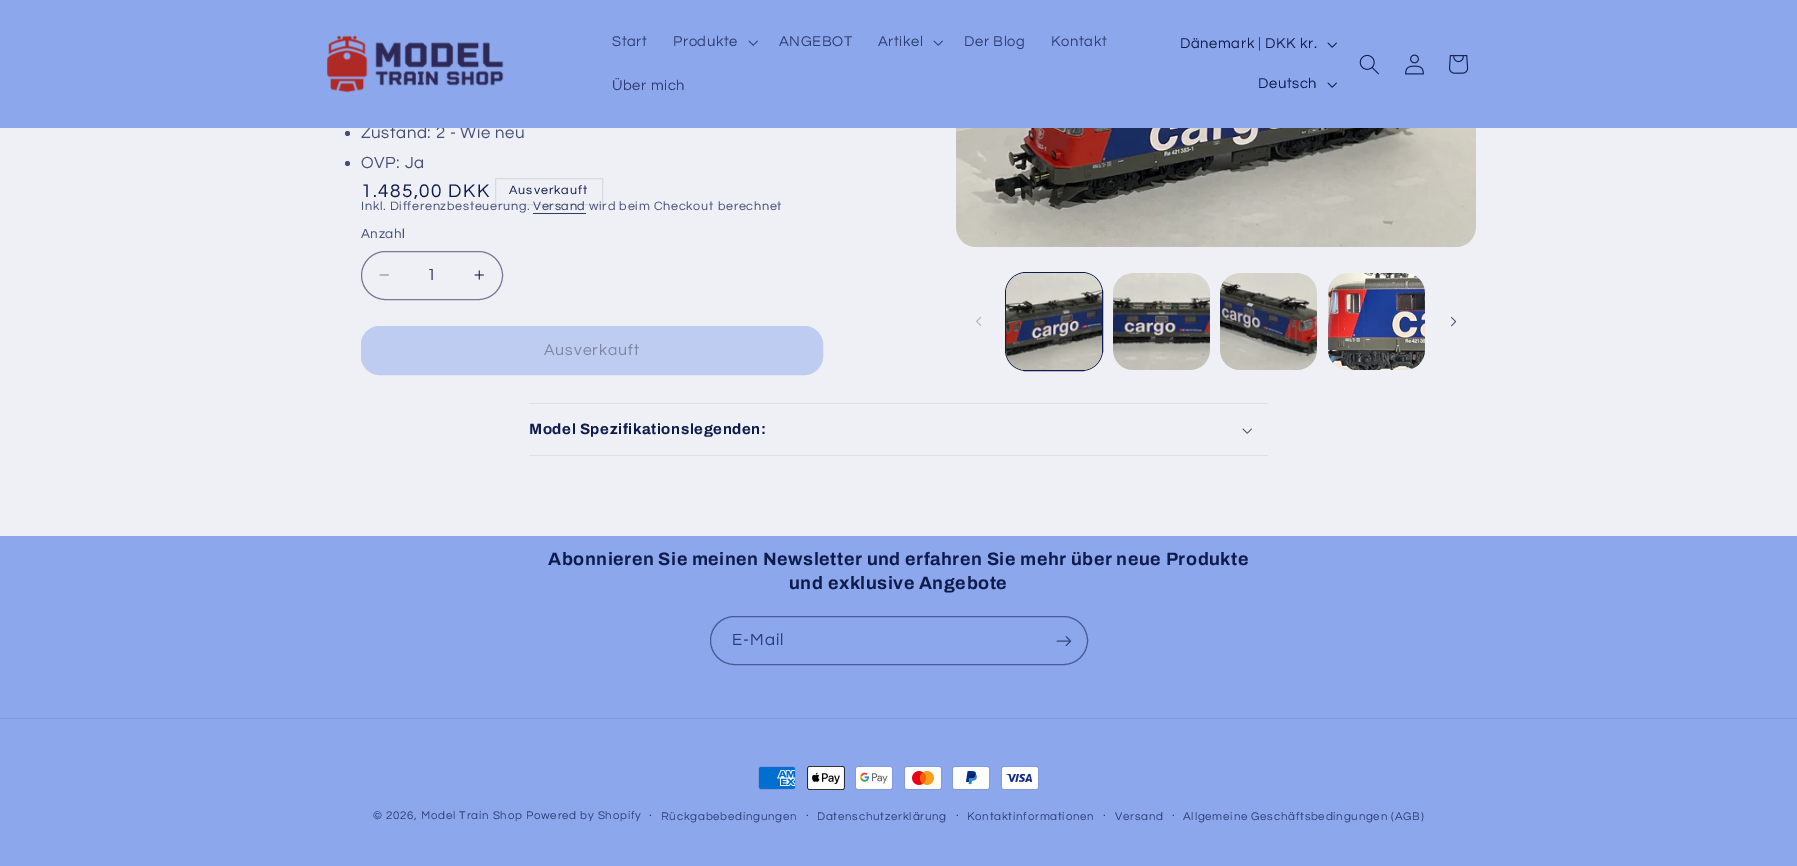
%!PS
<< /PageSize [1797 866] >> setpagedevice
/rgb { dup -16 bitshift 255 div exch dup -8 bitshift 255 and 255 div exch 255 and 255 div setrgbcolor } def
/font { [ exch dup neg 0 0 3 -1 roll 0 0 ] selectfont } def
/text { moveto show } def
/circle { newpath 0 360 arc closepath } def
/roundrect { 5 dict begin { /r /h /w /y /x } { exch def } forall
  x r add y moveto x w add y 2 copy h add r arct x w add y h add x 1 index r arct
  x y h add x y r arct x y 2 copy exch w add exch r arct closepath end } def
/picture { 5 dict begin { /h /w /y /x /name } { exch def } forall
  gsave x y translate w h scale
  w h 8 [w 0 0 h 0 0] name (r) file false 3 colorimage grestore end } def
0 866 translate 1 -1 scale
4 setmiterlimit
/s1 { /Questrial-Regular 16.75 font 16#2F3A66 rgb } def
16#EFF0F5 rgb
0 0 1797 866 rectfill
/Questrial-Regular 16.75 font
16#465077 rgb
361 138 moveto 0.6 0 (Zustand: 2 - Wie neu) ashow
16#8DA7EC rgb
0 0 1797 128 rectfill
(pic1.raw) 327 35 177 58 picture
/Questrial-Regular 14.75 font
16#2E3E75 rgb
612 46 moveto 0.6 0 (Start) ashow
673 46 moveto 0.6 0 (Produkte) ashow
(pic2.raw) 748 40 10 6 picture
779 46 moveto 0.6 0 (ANGEBOT) ashow
878 46 moveto 0.6 0 (Artikel) ashow
(pic2.raw) 933 40 10 6 picture
964 46 moveto 0.6 0 (Der Blog) ashow
1051 46 moveto 0.6 0 (Kontakt) ashow
612 90 moveto 0.6 0 (Über mich) ashow
16#0E1B4D rgb
1180 48 moveto 0.6 0 (Dänemark | DKK kr.) ashow
(pic3.raw) 1327 42 10 6 picture
1258 88 moveto 0.6 0 (Deutsch) ashow
(pic3.raw) 1327 82 10 6 picture
(pic4.raw) 1359 54 20 21 picture
(pic5.raw) 1405 54 19 21 picture
(pic6.raw) 1449 55 20 19 picture
16#465077 rgb
347.5 133.5 2.5 circle fill
347.5 163.5 2.5 circle fill
/Questrial-Regular 16.75 font
361 168 moveto 0.6 0 (OVP: Ja) ashow
/Questrial-Regular 19 font
16#0E1B4D rgb
361 197 moveto 1.4 0 (1.485,00 DKK) ashow
16#D8DBE4 rgb
495.5 178.5 107 26 rectstroke
/Questrial-Regular 12.6 font
16#0E1B4D rgb
509 194 moveto 1 0 (Ausverkauft) ashow
16#465077 rgb
361 210 moveto 0.75 0 (Inkl. Differenzbesteuerung.) ashow
16#2F3A66 rgb
533 210 moveto 0.75 0 (Versand) ashow
16#303B66 rgb
533 213 53 1 rectfill
16#465077 rgb
589 210 moveto 0.75 0 (wird beim Checkout berechnet) ashow
/Questrial-Regular 13.5 font
361 238 moveto 0.5 0 (Anzahl) ashow
(pic7.raw) 379 274 10 2 picture
(pic8.raw) 474 270 10 10 picture
16#737B99 rgb
361.5 251.5 141 48 24 roundrect stroke
s1
(1) 427 280 text
16#BECCF1 rgb
361 326 462 49 19 roundrect fill
361.5 326.5 461 48 18.5 roundrect stroke
/Questrial-Regular 15.75 font
16#7F86A1 rgb
544 355 moveto 1 0 (Ausverkauft) ashow
(pic9.raw) 956 128 520 119 picture
(pic10.raw) 976 316 6 10 picture
16#0E1B4D rgb
1005.5 272.5 97 98 20.5 roundrect stroke
(pic11.raw) 1006 273 96 97 picture
(pic12.raw) 1113 273 97 97 picture
(pic13.raw) 1220 273 97 97 picture
(pic14.raw) 1328 273 97 97 picture
(pic15.raw) 1451 316 6 11 picture
16#DDDFE8 rgb
529 403 739 1 rectfill
529 455 739 1 rectfill
/Archivo-Bold 15 font
16#0E1B4D rgb
529 434 moveto 0.6 0 (Model Spezifikationslegenden:) ashow
(pic16.raw) 1242 428 10 6 picture
16#8DA7EC rgb
0 536 1797 330 rectfill
/Archivo-Bold 18 font
16#0E1B4D rgb
548 565 moveto 0.6 0 (Abonnieren Sie meinen Newsletter und erfahren Sie mehr über neue Produkte) ashow
789 589 moveto 0.6 0 (und exklusive Angebote) ashow
16#475A95 rgb
710.5 616.5 377 48 24 roundrect stroke
/Questrial-Regular 16.75 font
16#2E3E75 rgb
732 645 moveto 1 0 (E-Mail) ashow
(pic17.raw) 1056 636 15 11 picture
16#839CDF rgb
0 718 1797 1 rectfill
(pic18.raw) 758 766 38 24 picture
(pic19.raw) 807 766 38 24 picture
(pic20.raw) 855 766 38 24 picture
(pic21.raw) 904 766 38 24 picture
(pic22.raw) 952 766 38 24 picture
(pic23.raw) 1001 766 38 24 picture
/Questrial-Regular 11.55 font
16#2E3E75 rgb
373 819 moveto 0.75 0 (© 2026, Model Train Shop Powered by Shopify) ashow
/Questrial-Regular 12.6 font
649 819 moveto 0.75 0 (·) ashow
/Questrial-Regular 11.55 font
661 820 moveto 0.75 0 (Rückgabebedingungen) ashow
/Questrial-Regular 12.6 font
806 819 moveto 0.75 0 (·) ashow
/Questrial-Regular 11.55 font
817 820 moveto 0.75 0 (Datenschutzerklärung) ashow
/Questrial-Regular 12.6 font
956 819 moveto 0.75 0 (·) ashow
/Questrial-Regular 11.55 font
967 820 moveto 0.75 0 (Kontaktinformationen) ashow
/Questrial-Regular 12.6 font
1103 819 moveto 0.75 0 (·) ashow
/Questrial-Regular 11.55 font
1115 820 moveto 0.75 0 (Versand) ashow
/Questrial-Regular 12.6 font
1172 819 moveto 0.75 0 (·) ashow
/Questrial-Regular 11.55 font
1183 820 moveto 0.75 0 (Allgemeine Geschäftsbedingungen \(AGB\)) ashow
showpage
